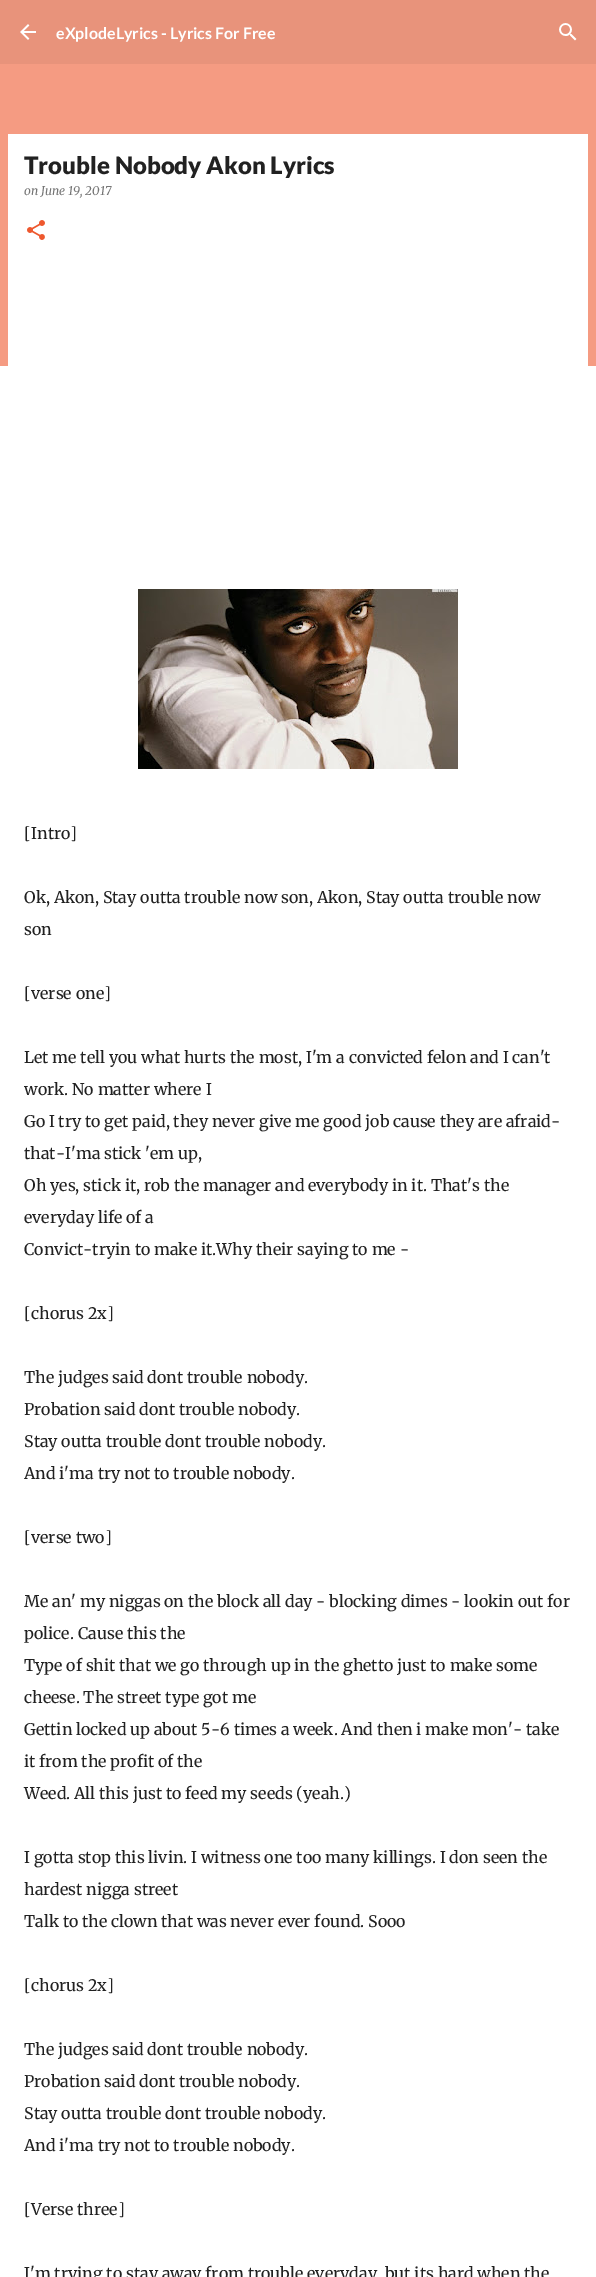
%!PS
<< /PageSize [596 2277] >> setpagedevice
/rgb { dup -16 bitshift 255 div exch dup -8 bitshift 255 and 255 div exch 255 and 255 div setrgbcolor } def
/font { [ exch dup neg 0 0 3 -1 roll 0 0 ] selectfont } def
/text { moveto show } def
/picture { 5 dict begin { /h /w /y /x /name } { exch def } forall
  gsave x y translate w h scale
  w h 8 [w 0 0 h 0 0] name (r) file false 3 colorimage grestore end } def
0 2277 translate 1 -1 scale
4 setmiterlimit
/s1 { /Lato-Bold 16 font 16#FFFFFF rgb } def
/s2 { /Lato-Black 24 font 16#212121 rgb } def
/s3 { /Merriweather-LightItalic 12 font 16#757575 rgb } def
/s4 { /Merriweather-Light 16 font 16#212121 rgb } def
16#F59B82 rgb
0 0 596 2277 rectfill
16#E8937B rgb
0 0 596 64 rectfill
(pic1.raw) 20 24 16 16 picture
s1
(eXplodeLyrics - Lyrics For Free) 56 39 text
(pic2.raw) 559 23 18 18 picture
0 366 596 1911 rectfill
8 134 580 232 rectfill
s2
(Trouble Nobody Akon Lyrics) 24 174 text
s3
(on June 19, 2017) 24 195 text
(pic3.raw) 27 220 18 20 picture
(pic4.raw) 138 589 320 180 picture
s4
([Intro]) 24 839 text
(Ok, Akon, Stay outta trouble now son, Akon, Stay outta trouble now) 24 903 text
(son) 24 935 text
([verse one]) 24 999 text
(Let me tell you what hurts the most, I'm a convicted felon and I can't) 24 1063 text
(work. No matter where I) 24 1095 text
(Go I try to get paid, they never give me good job cause they are afraid-) 24 1127 text
(that-I'ma stick 'em up,) 24 1159 text
(Oh yes, stick it, rob the manager and everybody in it. That's the) 24 1191 text
(everyday life of a) 24 1223 text
(Convict-tryin to make it.Why their saying to me -) 24 1255 text
([chorus 2x]) 24 1319 text
(The judges said dont trouble nobody.) 24 1383 text
(Probation said dont trouble nobody.) 24 1415 text
(Stay outta trouble dont trouble nobody.) 24 1447 text
(And i'ma try not to trouble nobody.) 24 1479 text
([verse two]) 24 1543 text
(Me an' my niggas on the block all day - blocking dimes - lookin out for) 24 1607 text
(police. Cause this the) 24 1639 text
(Type of shit that we go through up in the ghetto just to make some) 24 1671 text
(cheese. The street type got me) 24 1703 text
(Gettin locked up about 5-6 times a week. And then i make mon'- take) 24 1735 text
(it from the profit of the) 24 1767 text
(Weed. All this just to feed my seeds \(yeah.\)) 24 1799 text
(I gotta stop this livin. I witness one too many killings. I don seen the) 24 1863 text
(hardest nigga street) 24 1895 text
(Talk to the clown that was never ever found. Sooo) 24 1927 text
([chorus 2x]) 24 1991 text
(The judges said dont trouble nobody.) 24 2055 text
(Probation said dont trouble nobody.) 24 2087 text
(Stay outta trouble dont trouble nobody.) 24 2119 text
(And i'ma try not to trouble nobody.) 24 2151 text
([Verse three]) 24 2215 text
(I'm trying to stay away from trouble everyday, but its hard when the) 24 2279 text
showpage
